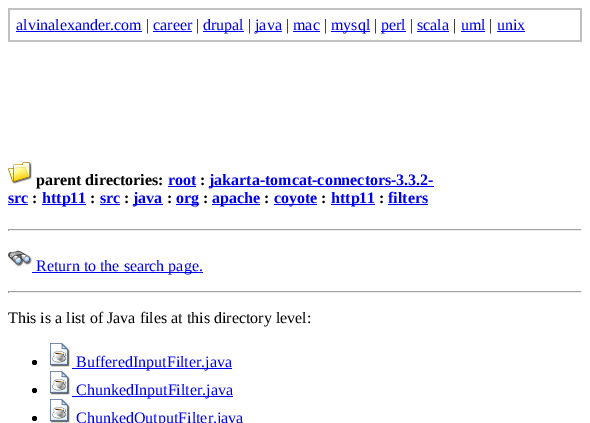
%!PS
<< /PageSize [590 423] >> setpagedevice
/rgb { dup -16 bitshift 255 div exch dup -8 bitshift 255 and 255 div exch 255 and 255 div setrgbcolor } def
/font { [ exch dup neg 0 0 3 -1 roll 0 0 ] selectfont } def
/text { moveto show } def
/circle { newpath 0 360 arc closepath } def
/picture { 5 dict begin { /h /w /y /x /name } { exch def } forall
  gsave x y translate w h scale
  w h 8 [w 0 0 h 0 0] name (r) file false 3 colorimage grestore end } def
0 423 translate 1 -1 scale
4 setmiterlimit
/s1 { /LiberationSerif-Regular 16 font 16#0000EE rgb } def
/s2 { /LiberationSerif-Regular 16 font 16#000000 rgb } def
/s3 { /LiberationSerif-Bold 16 font 16#000000 rgb } def
/s4 { /LiberationSerif-Bold 16 font 16#0000EE rgb } def
16#FFFFFF rgb
0 0 590 423 rectfill
16#C0C0C0 rgb
8 8 574 34 rectfill
16#FFFFFF rgb
10 10 570 30 rectfill
s1
(alvinalexander.com) 16 30 text
16 31 126 1 rectfill
s2
(|) 146 30 text
s1
(career) 153 30 text
153 31 39 1 rectfill
s2
(|) 196 30 text
16#0000EE rgb
203 31 41 1 rectfill
(drupal) 203 30 text
s2
(|) 248 30 text
16#0000EE rgb
255 31 27 1 rectfill
(java) 255 30 text
s2
(|) 286 30 text
s1
(mac) 293 30 text
293 31 27 1 rectfill
s2
(|) 324 30 text
16#0000EE rgb
331 31 39 1 rectfill
(mysql) 331 30 text
s2
(|) 374 30 text
16#0000EE rgb
381 31 25 1 rectfill
(perl) 381 30 text
s2
(|) 410 30 text
s1
(scala) 417 30 text
417 31 32 1 rectfill
s2
(|) 453 30 text
s1
(uml) 461 30 text
461 31 24 1 rectfill
s2
(|) 489 30 text
s1
(unix) 497 30 text
497 31 28 1 rectfill
(pic1.raw) 8 162 24 22 picture
s3
(parent directories:) 36 185 text
s4
(root) 168 185 text
168 186 28 1 rectfill
s3
(:) 200 185 text
16#0000EE rgb
209 186 225 1 rectfill
(jakarta-tomcat-connectors-3.3.2-) 209 185 text
(src) 8 203 text
8 204 20 1 rectfill
s3
(:) 32 203 text
16#0000EE rgb
42 204 44 1 rectfill
(http11) 42 203 text
s3
(:) 90 203 text
s4
(src) 100 203 text
100 204 20 1 rectfill
s3
(:) 124 203 text
16#0000EE rgb
133 204 30 1 rectfill
(java) 133 203 text
s3
(:) 167 203 text
16#0000EE rgb
176 204 23 1 rectfill
(org) 176 203 text
s3
(:) 203 203 text
16#0000EE rgb
212 204 48 1 rectfill
(apache) 212 203 text
s3
(:) 264 203 text
16#0000EE rgb
274 204 43 1 rectfill
(coyote) 274 203 text
s3
(:) 321 203 text
16#0000EE rgb
331 204 44 1 rectfill
(http11) 331 203 text
s3
(:) 379 203 text
s4
(filters) 388 203 text
388 204 40 1 rectfill
16#9F9F9F rgb
8 229 574 1 rectfill
16#EEEEEE rgb
581 229 1 2 rectfill
8 230 574 1 rectfill
16#9F9F9F rgb
8 229 1 2 rectfill
(pic2.raw) 8 250 24 17 picture
16#0000EE rgb
32 272 171 1 rectfill
s1
(Return to the search page.) 36 271 text
16#9F9F9F rgb
8 291 574 1 rectfill
16#EEEEEE rgb
581 291 1 2 rectfill
8 292 574 1 rectfill
16#9F9F9F rgb
8 291 1 2 rectfill
s2
(This is a list of Java files at this directory level:) 8 323 text
34.5 362.5 2.5 circle fill
(pic3.raw) 50 343 20 24 picture
16#0000EE rgb
72 368 160 1 rectfill
(BufferedInputFilter.java) 76 367 text
16#000000 rgb
34.5 390.5 2.5 circle fill
(pic3.raw) 50 371 20 24 picture
16#0000EE rgb
72 396 161 1 rectfill
(ChunkedInputFilter.java) 76 395 text
16#000000 rgb
34.5 418.5 2.5 circle fill
(pic3.raw) 50 399 20 24 picture
s1
(ChunkedOutputFilter.java) 76 423 text
showpage
